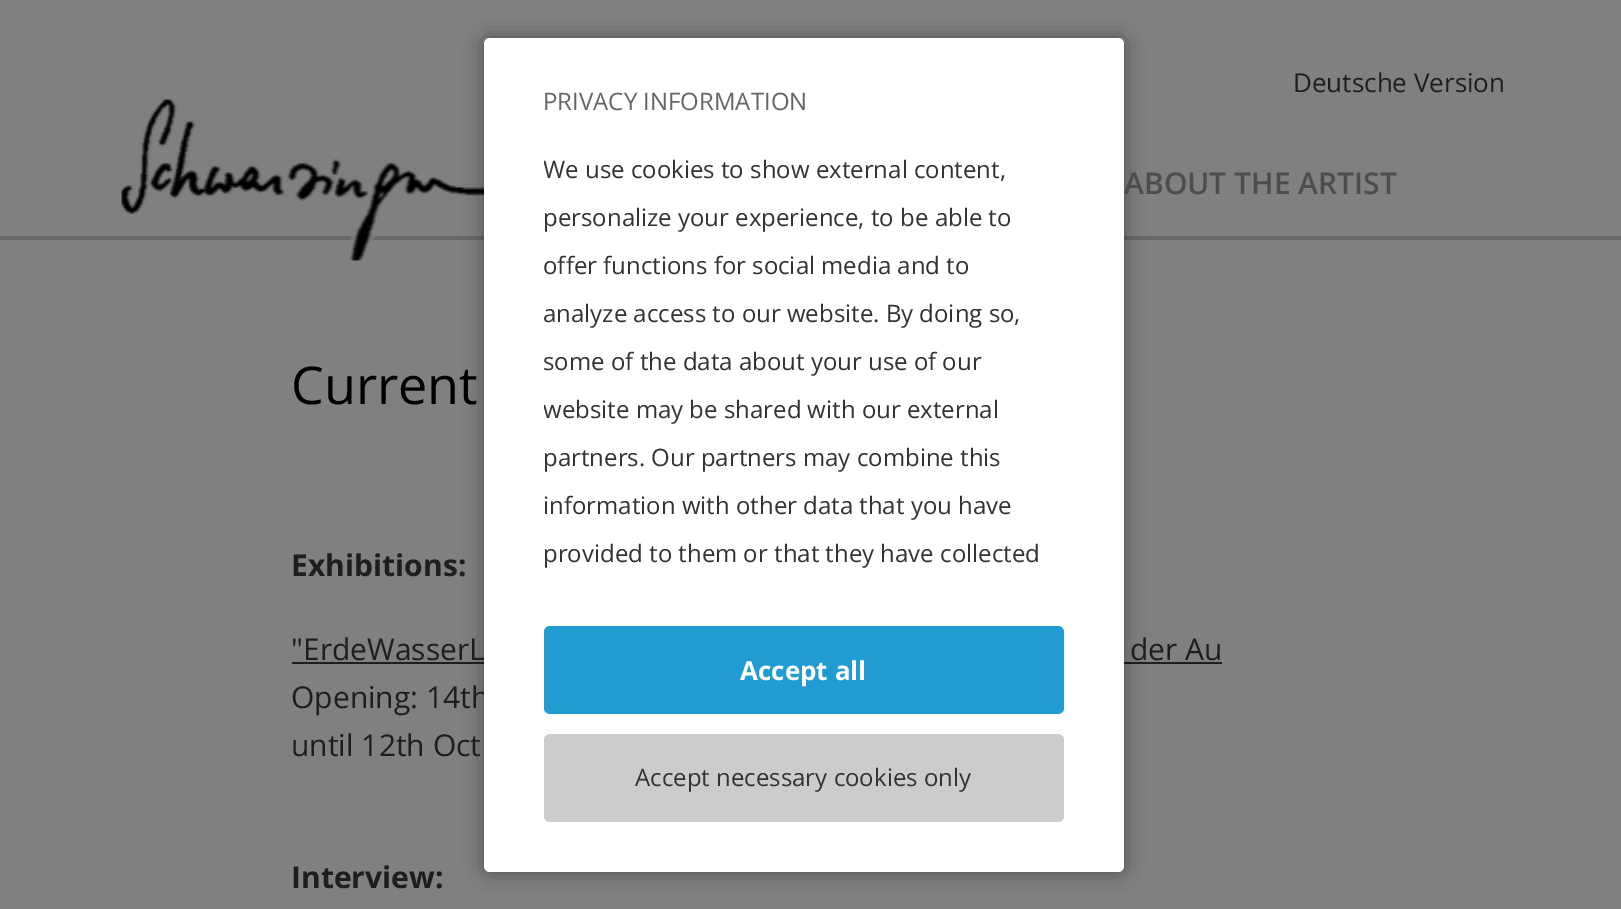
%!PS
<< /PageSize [1621 909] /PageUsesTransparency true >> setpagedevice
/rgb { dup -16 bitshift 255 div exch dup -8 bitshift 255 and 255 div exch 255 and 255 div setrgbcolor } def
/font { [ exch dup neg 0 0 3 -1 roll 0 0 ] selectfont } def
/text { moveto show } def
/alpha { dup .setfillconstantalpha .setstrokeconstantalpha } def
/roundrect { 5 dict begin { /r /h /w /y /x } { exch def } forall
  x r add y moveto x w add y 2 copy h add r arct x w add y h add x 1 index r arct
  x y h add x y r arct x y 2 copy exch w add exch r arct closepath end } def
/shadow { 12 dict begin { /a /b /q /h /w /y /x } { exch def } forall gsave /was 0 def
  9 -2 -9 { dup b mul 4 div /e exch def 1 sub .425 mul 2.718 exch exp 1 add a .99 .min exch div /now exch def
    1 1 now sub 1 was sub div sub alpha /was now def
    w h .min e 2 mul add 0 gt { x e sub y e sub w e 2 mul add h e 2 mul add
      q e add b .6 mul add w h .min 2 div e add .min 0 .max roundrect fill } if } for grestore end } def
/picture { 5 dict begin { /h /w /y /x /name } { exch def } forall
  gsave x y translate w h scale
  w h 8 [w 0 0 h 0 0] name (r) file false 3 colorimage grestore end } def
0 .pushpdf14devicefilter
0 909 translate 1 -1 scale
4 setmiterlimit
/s1 { /OpenSans-SemiBold 30 font 16#4D4D4D rgb } def
/s2 { /OpenSans-Regular 30 font 16#1E1E1E rgb } def
/s3 { /OpenSans-Regular 24 font 16#666666 rgb } def
/s4 { /OpenSans-Regular 24 font 16#333333 rgb } def
/s5 { /OpenSans-Bold 26 font 16#FFFFFF rgb } def
/s6 { /OpenSans-Regular 26 font 16#1E1E1E rgb } def
/s7 { /OpenSans-Regular 52 font 16#000000 rgb } def
/s8 { /OpenSans-Bold 30 font 16#1E1E1E rgb } def
16#808080 rgb
0 0 1621 909 rectfill
16#696969 rgb
0 236 1621 4 rectfill
(pic1.raw) 121 99 363 162 picture
16#1E1E1E rgb
292 662 930 2 rectfill
16#000000 rgb
484 38 640 834 6 10 0.4 shadow
s1
(ABOUT THE ARTIST) 1124 194 text
s2
("ErdeWasserL) 291 660 text
(Opening: 14th) 291 708 text
16#FFFFFF rgb
484 38 640 834 6 roundrect fill
s3
(PRIVACY INFORMATION) 543 110 text
gsave
544 146 520 440 6 roundrect clip newpath
s4
(We use cookies to show external content,) 543 178 text
grestore
s4
(personalize your experience, to be able to) 543 226 text
(offer functions for social media and to) 543 274 text
(analyze access to our website. By doing so,) 543 322 text
(some of the data about your use of our) 543 370 text
gsave
544 146 520 440 6 roundrect clip newpath
(website may be shared with our external) 543 418 text
grestore
(partners. Our partners may combine this) 543 466 text
(information with other data that you have) 543 514 text
(provided to them or that they have collected) 543 562 text
16#209CD2 rgb
544 626 520 88 6 roundrect fill
s5
(Accept all) 740 680 text
16#CCCCCC rgb
544 734 520 88 6 roundrect fill
s4
(Accept necessary cookies only) 635 786 text
s6
(Deutsche Version) 1293 92 text
s7
(Current) 291 404 text
s8
(Exhibitions:) 291 576 text
s2
(der Au) 1130 660 text
(until 12th Oct) 291 756 text
s8
(Interview:) 291 888 text
.poppdf14devicefilter showpage
